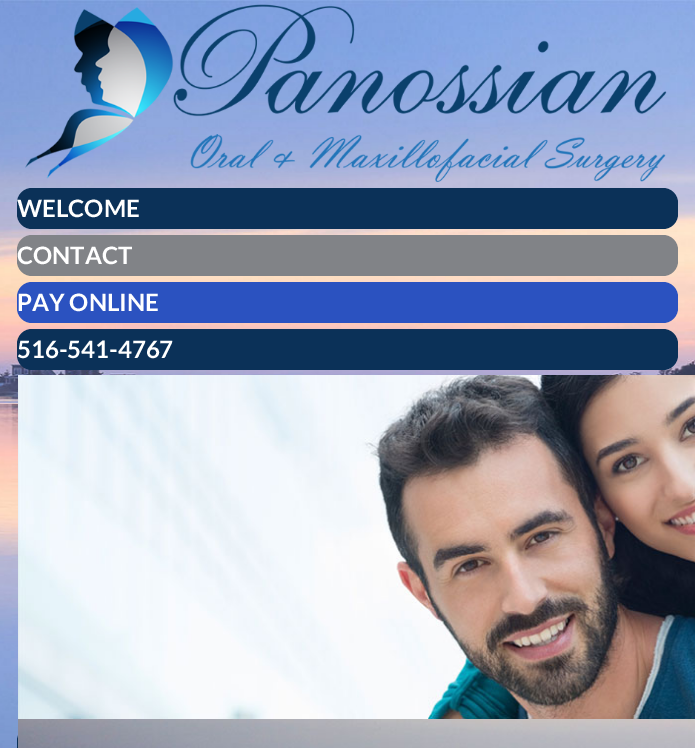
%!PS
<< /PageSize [695 748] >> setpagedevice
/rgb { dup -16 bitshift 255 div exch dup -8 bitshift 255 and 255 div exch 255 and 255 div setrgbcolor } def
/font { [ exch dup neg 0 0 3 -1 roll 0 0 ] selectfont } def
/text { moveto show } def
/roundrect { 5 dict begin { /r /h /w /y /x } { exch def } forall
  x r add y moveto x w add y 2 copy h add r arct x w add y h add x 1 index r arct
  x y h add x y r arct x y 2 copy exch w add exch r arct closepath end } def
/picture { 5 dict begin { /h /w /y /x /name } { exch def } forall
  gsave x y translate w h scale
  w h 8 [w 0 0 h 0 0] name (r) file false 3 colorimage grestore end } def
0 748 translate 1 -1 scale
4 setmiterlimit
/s1 { /Lato-Bold 24 font 16#FFFFFF rgb } def
16#FFFFFF rgb
0 0 695 748 rectfill
(pic1.raw) 0 0 695 748 picture
(pic2.raw) 25 4 642 178 picture
16#0B3158 rgb
17 188 661 41 15 roundrect fill
s1
(WELCOME) 17 217 text
16#818387 rgb
17 235 661 41 15 roundrect fill
s1
(CONTACT) 17 264 text
16#2B52C0 rgb
17 282 661 41 15 roundrect fill
s1
(PAY ONLINE) 17 311 text
16#0B3158 rgb
17 329 661 41 15 roundrect fill
s1
(516-541-4767) 17 358 text
(pic3.raw) 18 375 677 344 picture
16#0B3158 rgb
17 726 661 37 15 roundrect fill
(pic4.raw) 18 719 677 29 picture
showpage
